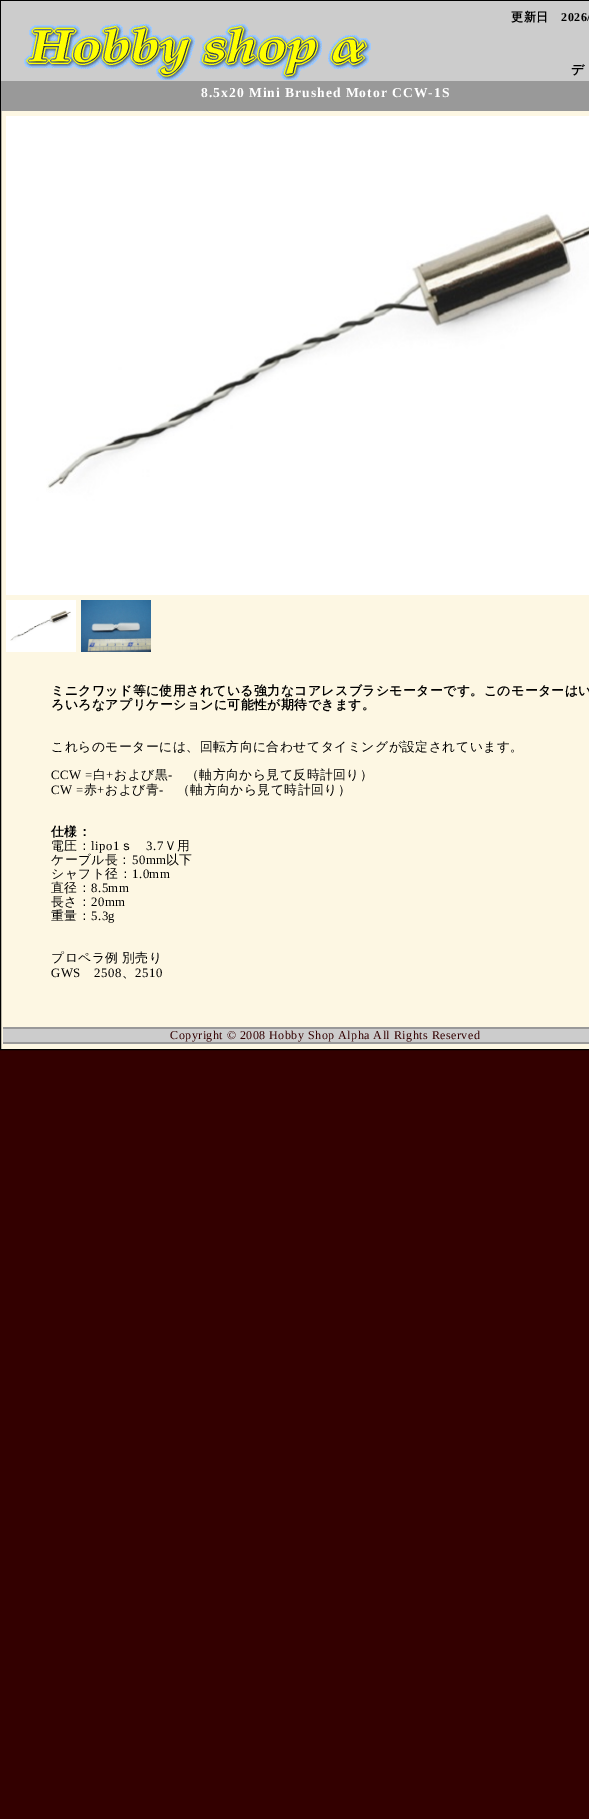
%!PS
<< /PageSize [589 1819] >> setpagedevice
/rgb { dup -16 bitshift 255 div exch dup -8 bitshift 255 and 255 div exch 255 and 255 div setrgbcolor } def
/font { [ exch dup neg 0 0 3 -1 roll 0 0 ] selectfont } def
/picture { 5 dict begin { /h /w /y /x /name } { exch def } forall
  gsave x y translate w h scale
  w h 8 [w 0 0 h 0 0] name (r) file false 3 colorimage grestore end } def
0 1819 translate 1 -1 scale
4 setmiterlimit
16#330000 rgb
0 0 589 1819 rectfill
16#FDF7E3 rgb
1 111 588 938 rectfill
16#000000 rgb
0.5 0.5 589 1049 rectstroke
16#CCCCCC rgb
1 1 588 80 rectfill
(pic1.raw) 24 24 347 56 picture
/WenQuanYiZenHei-Bold 12 font
16#000000 rgb
511 21 moveto 0.5 0 (更新日) ashow
/LiberationSerif-Bold 12 font
561 21 moveto 0.5 0 (2026/) ashow
/WenQuanYiZenHei-Bold 13 font
571 74 moveto 0.5 0 (デ) ashow
16#999999 rgb
1 81 588 30 rectfill
/LiberationSerif-Bold 13.6 font
16#FFFFFF rgb
201 97 moveto 1 0 (8.5x20 Mini Brushed Motor CCW-1S) ashow
(pic2.raw) 6 116 583 479 picture
(pic3.raw) 6 600 70 52 picture
(pic4.raw) 81 600 70 52 picture
/WenQuanYiZenHei-Bold 12.8 font
16#000000 rgb
51 695 moveto 0.5 0 (ミニクワッド等に使用されている強力なコアレスブラシモーターです。このモーターはい) ashow
51 709 moveto 0.5 0 (ろいろなアプリケーションに可能性が期待できます。) ashow
/WenQuanYiZenHei-Medium 12.8 font
51 751 moveto 0.5 0 (これらのモーターには、回転方向に合わせてタイミングが設定されています。) ashow
/LiberationSerif-Regular 12.8 font
51 779 moveto 0.5 0 (CCW =) ashow
/WenQuanYiZenHei-Medium 12.8 font
93 779 moveto 0.5 0 (白) ashow
/LiberationSerif-Regular 12.8 font
106 779 moveto 0.5 0 (+) ashow
/WenQuanYiZenHei-Medium 12.8 font
114 779 moveto 0.5 0 (および黒) ashow
/LiberationSerif-Regular 12.8 font
168 779 moveto 0.5 0 (-) ashow
/WenQuanYiZenHei-Medium 12.8 font
186 779 moveto 0.5 0 (（軸方向から見て反時計回り）) ashow
/LiberationSerif-Regular 12.8 font
51 794 moveto 0.5 0 (CW =) ashow
/WenQuanYiZenHei-Medium 12.8 font
84 794 moveto 0.5 0 (赤) ashow
/LiberationSerif-Regular 12.8 font
97 794 moveto 0.5 0 (+) ashow
/WenQuanYiZenHei-Medium 12.8 font
105 794 moveto 0.5 0 (および青) ashow
/LiberationSerif-Regular 12.8 font
159 794 moveto 0.5 0 (-) ashow
/WenQuanYiZenHei-Medium 12.8 font
177 794 moveto 0.5 0 (（軸方向から見て時計回り）) ashow
/WenQuanYiZenHei-Bold 12.8 font
51 836 moveto 0.5 0 (仕様：) ashow
/WenQuanYiZenHei-Medium 12.8 font
51 850 moveto 0.5 0 (電圧：) ashow
/LiberationSerif-Regular 12.8 font
91 850 moveto 0.5 0 (lipo1) ashow
/WenQuanYiZenHei-Medium 12.8 font
120 850 moveto 0.5 0 (ｓ) ashow
/LiberationSerif-Regular 12.8 font
146 850 moveto 0.5 0 (3.7) ashow
/WenQuanYiZenHei-Medium 12.8 font
164 850 moveto 0.5 0 (Ｖ用) ashow
51 864 moveto 0.5 0 (ケーブル長：) ashow
/LiberationSerif-Regular 12.8 font
132 864 moveto 0.5 0 (50mm) ashow
/WenQuanYiZenHei-Medium 12.8 font
166 864 moveto 0.5 0 (以下) ashow
51 878 moveto 0.5 0 (シャフト径：) ashow
/LiberationSerif-Regular 12.8 font
132 878 moveto 0.5 0 (1.0mm) ashow
/WenQuanYiZenHei-Medium 12.8 font
51 892 moveto 0.5 0 (直径：) ashow
/LiberationSerif-Regular 12.8 font
91 892 moveto 0.5 0 (8.5mm) ashow
/WenQuanYiZenHei-Medium 12.8 font
51 906 moveto 0.5 0 (長さ：) ashow
/LiberationSerif-Regular 12.8 font
91 906 moveto 0.5 0 (20mm) ashow
/WenQuanYiZenHei-Medium 12.8 font
51 920 moveto 0.5 0 (重量：) ashow
/LiberationSerif-Regular 12.8 font
91 920 moveto 0.5 0 (5.3g) ashow
/WenQuanYiZenHei-Medium 12.8 font
51 962 moveto -1 0 32 0.5 0 (プロペラ例 別売り) awidthshow
/LiberationSerif-Regular 12.8 font
51 977 moveto 0.5 0 (GWS) ashow
94 977 moveto 0.5 0 (2508) ashow
/WenQuanYiZenHei-Medium 12.8 font
122 977 moveto 0.5 0 (、) ashow
/LiberationSerif-Regular 12.8 font
135 977 moveto 0.5 0 (2510) ashow
16#CCCCCC rgb
3 1029 586 13 rectfill
16#999999 rgb
3 1027 586 2 rectfill
3 1042 586 2 rectfill
/LiberationSerif-Regular 12 font
16#330000 rgb
170 1039 moveto 0.5 0 (Copyright © 2008 Hobby Shop Alpha All Rights Reserved) ashow
showpage
